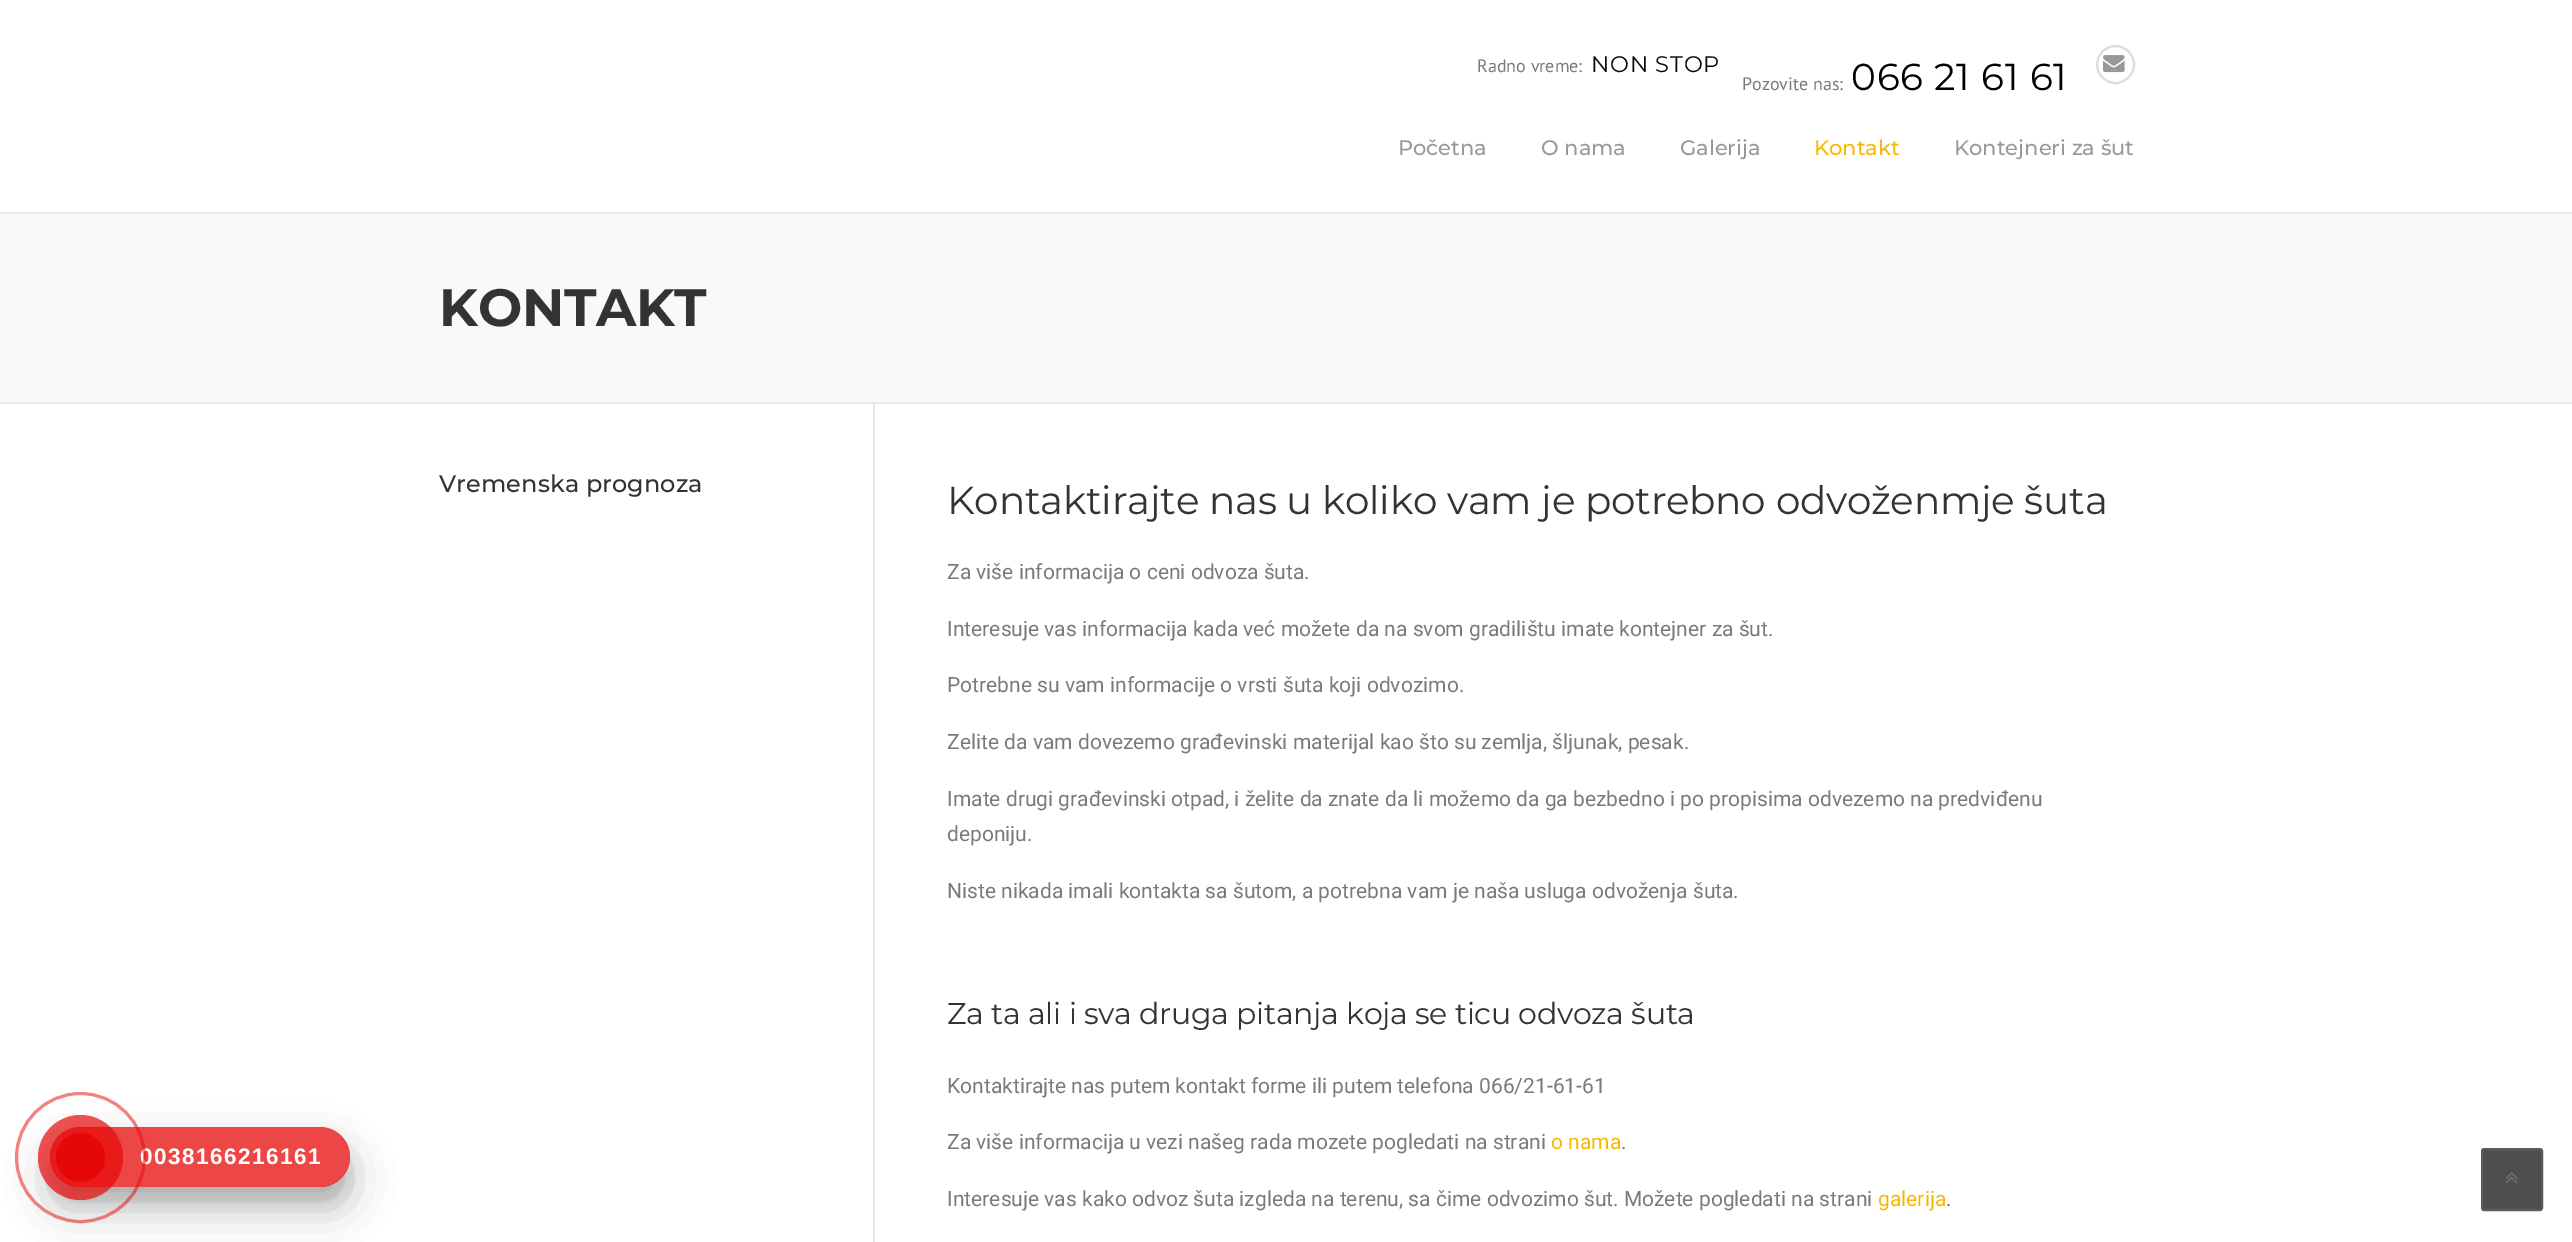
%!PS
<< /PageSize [2572 1242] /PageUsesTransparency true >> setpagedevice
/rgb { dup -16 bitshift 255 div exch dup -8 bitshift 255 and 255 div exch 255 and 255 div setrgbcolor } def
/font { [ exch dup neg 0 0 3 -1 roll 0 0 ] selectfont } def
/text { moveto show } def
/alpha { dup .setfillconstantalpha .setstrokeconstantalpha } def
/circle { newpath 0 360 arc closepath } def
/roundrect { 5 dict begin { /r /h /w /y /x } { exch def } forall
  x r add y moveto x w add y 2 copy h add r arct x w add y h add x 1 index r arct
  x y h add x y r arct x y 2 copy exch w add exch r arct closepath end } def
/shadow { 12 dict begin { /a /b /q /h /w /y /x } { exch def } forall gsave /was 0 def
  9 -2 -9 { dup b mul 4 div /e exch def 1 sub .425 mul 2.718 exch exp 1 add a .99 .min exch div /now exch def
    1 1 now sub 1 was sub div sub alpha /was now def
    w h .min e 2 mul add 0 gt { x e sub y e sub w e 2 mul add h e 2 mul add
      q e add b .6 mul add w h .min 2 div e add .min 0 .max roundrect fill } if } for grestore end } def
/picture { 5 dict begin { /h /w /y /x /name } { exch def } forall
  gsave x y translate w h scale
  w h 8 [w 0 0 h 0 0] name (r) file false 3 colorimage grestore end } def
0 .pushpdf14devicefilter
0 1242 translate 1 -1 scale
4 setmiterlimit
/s1 { /PTSans-Regular 18 font 16#7A7A7A rgb } def
/s2 { /Montserrat-Medium 21 font 16#999999 rgb } def
/s3 { /Montserrat-Medium 21 font 16#FAB702 rgb } def
/s4 { /Roboto-Regular 21 font 16#7A7A7A rgb } def
/s5 { /Roboto-Regular 21 font 16#FAB702 rgb } def
16#FFFFFF rgb
0 0 2572 1242 rectfill
gsave
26 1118 moveto 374 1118 lineto 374 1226 lineto 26 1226 lineto closepath 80 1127 moveto 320 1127 lineto 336.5 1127 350 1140.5 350 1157 curveto 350 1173.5 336.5 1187 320 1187 curveto 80 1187 lineto 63.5 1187 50 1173.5 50 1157 curveto 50 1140.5 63.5 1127 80 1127 curveto closepath eoclip newpath
16#000000 rgb
50 1142 300 60 30 7.5 0.1 shadow
grestore
gsave
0 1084 moveto 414 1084 lineto 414 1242 lineto 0 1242 lineto closepath 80 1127 moveto 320 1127 lineto 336.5 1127 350 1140.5 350 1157 curveto 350 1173.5 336.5 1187 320 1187 curveto 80 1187 lineto 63.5 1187 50 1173.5 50 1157 curveto 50 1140.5 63.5 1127 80 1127 curveto closepath eoclip newpath
16#000000 rgb
50 1148 300 60 30 21 0.25 shadow
grestore
0.75 alpha
16#E60808 rgb
50 1127 300 60 30 roundrect fill
/LiberationSans-Bold 22.5 font
1 alpha
16#FFFFFF rgb
140 1164 moveto 1.5 0 (0038166216161) ashow
0.5 alpha
16#E60808 rgb
3 setlinewidth
80.5 1157.5 64 circle stroke
0.7 alpha
80.5 1157.5 42.5 circle fill
1 alpha
80.5 1157.5 24.5 circle fill
s1
(Radno vreme:) 1477 72 text
/Montserrat-Regular 22.5 font
16#0A0A0A rgb
1591 72 moveto 0.75 0 (NON STOP) ashow
s1
(Pozovite nas:) 1742 90 text
/Montserrat-Regular 37.5 font
16#000000 rgb
1851 90 moveto 0.75 0 (066 21 61 61) ashow
16#DDDDDD rgb
2 setlinewidth
2115.5 64.5 18.5 circle stroke
(pic1.raw) 2103 55 22 18 picture
s2
(Početna) 1398 155 text
(O nama) 1541 155 text
(Galerija) 1680 155 text
s3
(Kontakt) 1814 155 text
s2
(Kontejneri za šut) 1954 155 text
16#F8F9F9 rgb
0 214 2572 188 rectfill
16#E9E9E9 rgb
0 212 2572 2 rectfill
0 402 2572 2 rectfill
/Montserrat-Bold 52.5 font
16#333333 rgb
439 326 moveto -0.3 0 (KONTAKT) ashow
/Montserrat-Medium 24 font
439 492 moveto 0.1 0 (Vremenska prognoza) ashow
16#E9E9E9 rgb
873 404 2 838 rectfill
/Montserrat-Regular 39 font
16#333333 rgb
947 514 moveto -0.3 0 (Kontaktirajte nas u koliko vam je potrebno odvoženmje šuta) ashow
s4
(Za više informacija o ceni odvoza šuta.) 947 579 text
(Interesuje vas informacija kada već možete da na svom gradilištu imate kontejner za šut.) 947 636 text
(Potrebne su vam informacije o vrsti šuta koji odvozimo.) 947 692 text
(Zelite da vam dovezemo građevinski materijal kao što su zemlja, šljunak, pesak.) 947 749 text
(Imate drugi građevinski otpad, i želite da znate da li možemo da ga bezbedno i po propisima odvezemo na predviđenu) 947 806 text
(deponiju.) 947 841 text
(Niste nikada imali kontakta sa šutom, a potrebna vam je naša usluga odvoženja šuta.) 947 898 text
/Montserrat-Regular 30 font
16#333333 rgb
947 1024 moveto -0.3 0 (Za ta ali i sva druga pitanja koja se ticu odvoza šuta) ashow
s4
(Kontaktirajte nas putem kontakt forme ili putem telefona 066/21-61-61) 947 1093 text
(Za više informacija u vezi našeg rada mozete pogledati na strani) 947 1149 text
s5
(o nama) 1551 1149 text
s4
(.) 1621 1149 text
(Interesuje vas kako odvoz šuta izgleda na terenu, sa čime odvozimo šut. Možete pogledati na strani) 947 1206 text
s5
(galerija) 1878 1206 text
s4
(.) 1946 1206 text
16#4E4E4E rgb
2482 1149 60 61 2 roundrect gsave fill grestore
16#5C5C5C rgb
stroke
(pic2.raw) 2506 1172 12 12 picture
.poppdf14devicefilter showpage
